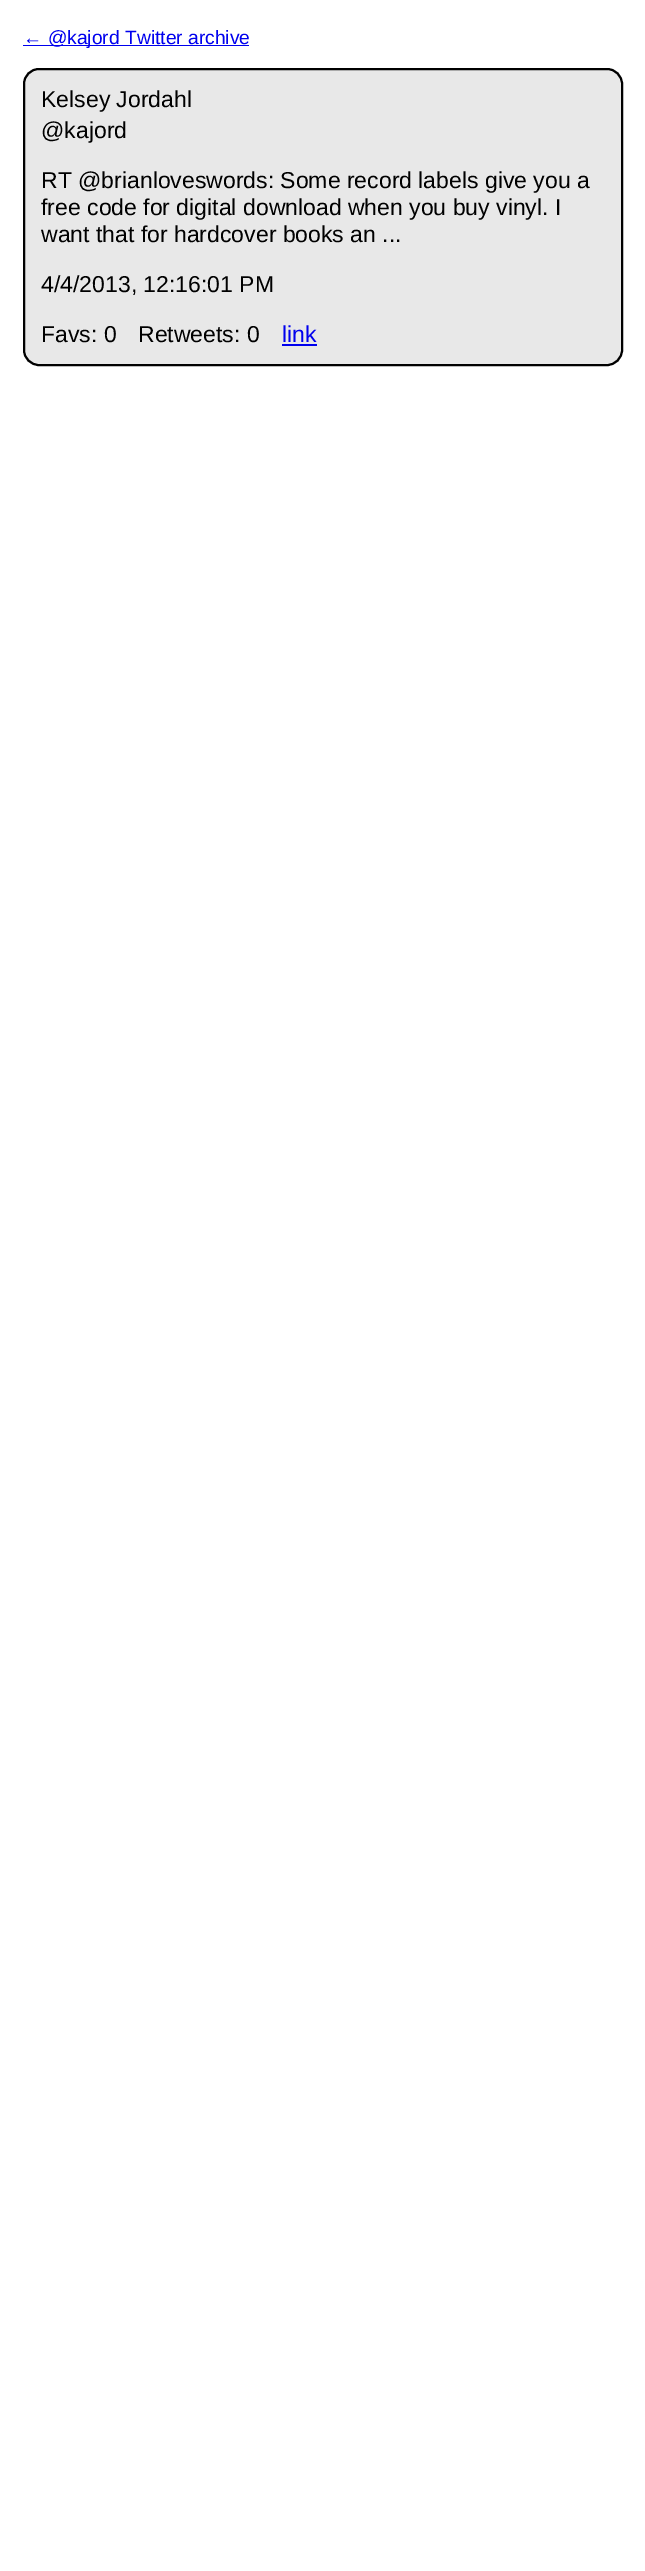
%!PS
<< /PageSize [645 2571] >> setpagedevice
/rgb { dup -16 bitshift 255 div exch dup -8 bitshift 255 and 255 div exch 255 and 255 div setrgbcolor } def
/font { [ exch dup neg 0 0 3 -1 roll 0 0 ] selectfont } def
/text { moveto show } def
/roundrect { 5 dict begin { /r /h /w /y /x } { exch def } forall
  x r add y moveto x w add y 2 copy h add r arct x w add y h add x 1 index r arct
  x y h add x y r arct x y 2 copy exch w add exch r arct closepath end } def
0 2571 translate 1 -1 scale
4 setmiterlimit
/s1 { /LiberationSans-Regular 19.25 font 16#0000EE rgb } def
/s2 { /LiberationSans-Regular 23 font 16#000000 rgb } def
/s3 { /LiberationSans-Regular 23 font 16#0000EE rgb } def
16#FFFFFF rgb
0 0 645 2571 rectfill
16#0000EE rgb
23 45 226 1 rectfill
s1
(← @kajord Twitter archive) 23 44 text
16#E8E8E8 rgb
24 69 598 296 15 roundrect gsave fill grestore
16#000000 rgb
2 setlinewidth
stroke
s2
(Kelsey Jordahl) 41 107 text
(@kajord) 41 138 text
(RT @brianloveswords: Some record labels give you a) 41 188 text
(free code for digital download when you buy vinyl. I) 41 215 text
(want that for hardcover books an ...) 41 242 text
(4/4/2013, 12:16:01 PM) 41 292 text
(Favs: 0) 41 342 text
(Retweets: 0) 138 342 text
s3
(link) 282 342 text
282 344 35 2 rectfill
showpage
